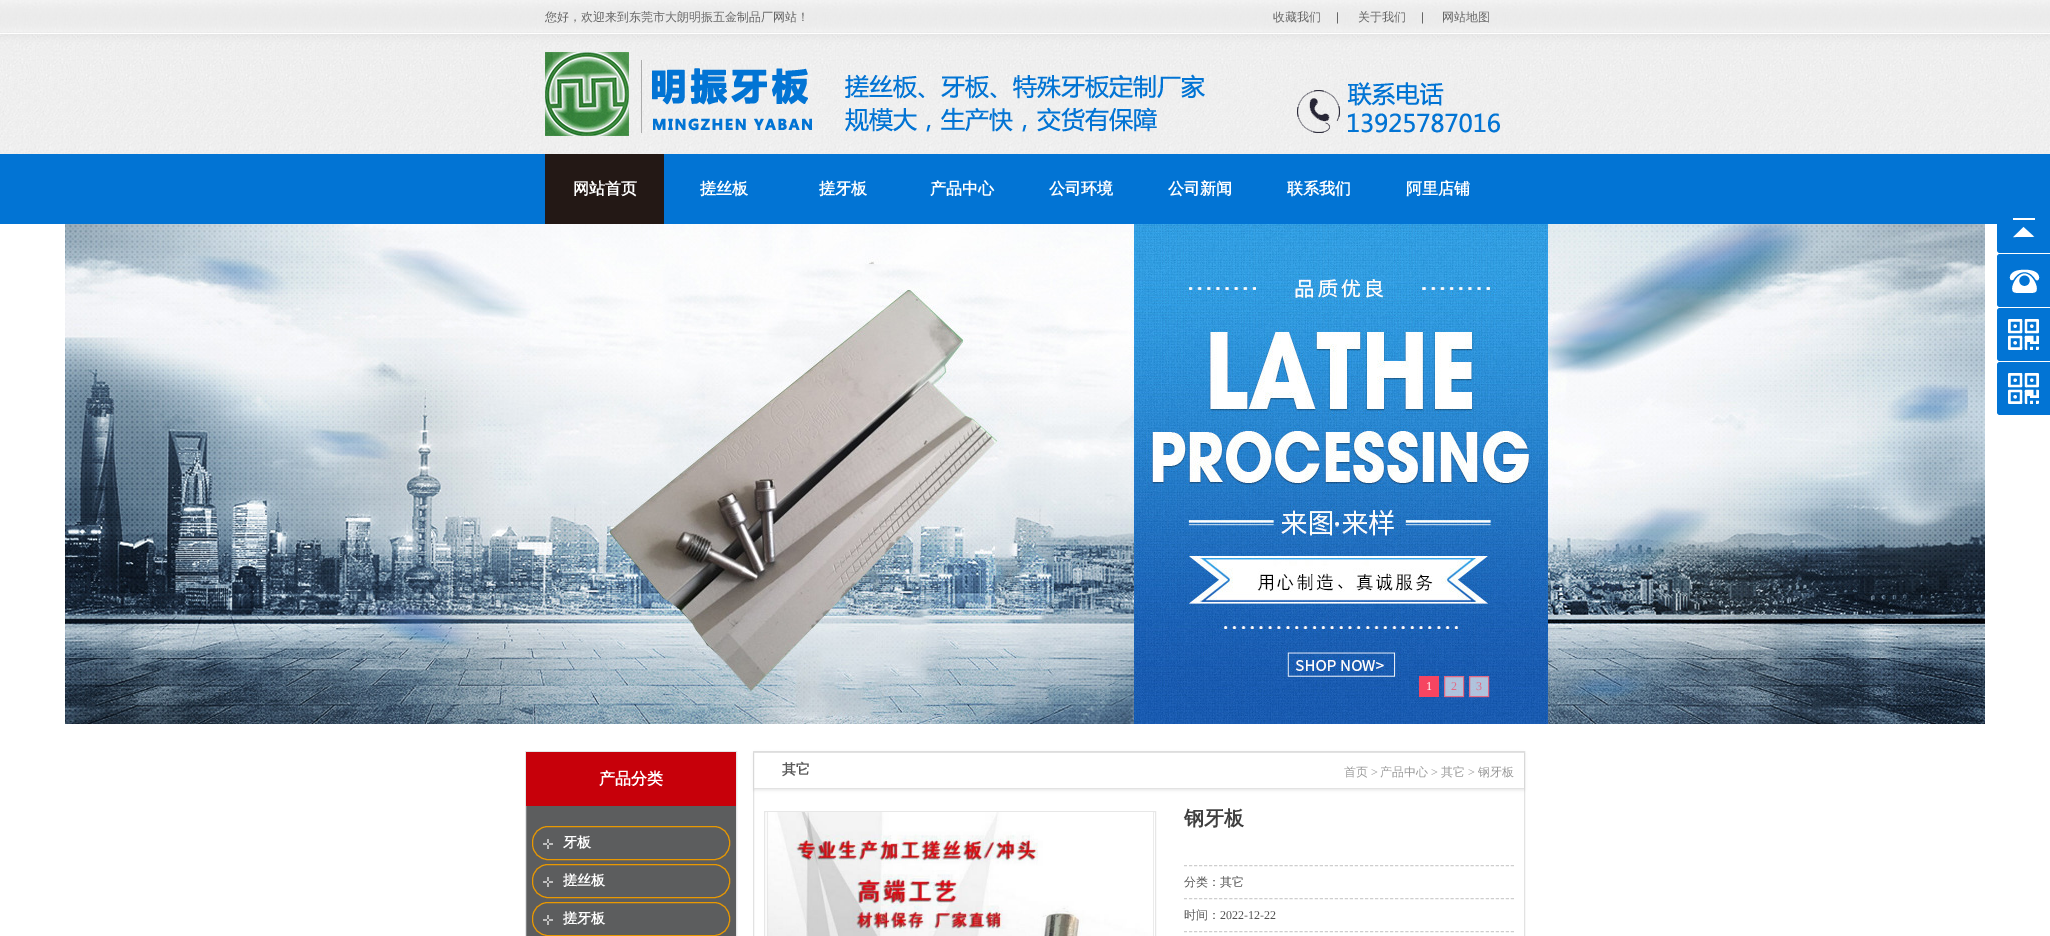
%!PS
<< /PageSize [2050 936] /PageUsesTransparency true >> setpagedevice
/rgb { dup -16 bitshift 255 div exch dup -8 bitshift 255 and 255 div exch 255 and 255 div setrgbcolor } def
/font { [ exch dup neg 0 0 3 -1 roll 0 0 ] selectfont } def
/text { moveto show } def
/alpha { dup .setfillconstantalpha .setstrokeconstantalpha } def
/roundrect { 5 dict begin { /r /h /w /y /x } { exch def } forall
  x r add y moveto x w add y 2 copy h add r arct x w add y h add x 1 index r arct
  x y h add x y r arct x y 2 copy exch w add exch r arct closepath end } def
/shadow { 12 dict begin { /a /b /q /h /w /y /x } { exch def } forall gsave /was 0 def
  9 -2 -9 { dup b mul 4 div /e exch def 1 sub .425 mul 2.718 exch exp 1 add a .99 .min exch div /now exch def
    1 1 now sub 1 was sub div sub alpha /was now def
    w h .min e 2 mul add 0 gt { x e sub y e sub w e 2 mul add h e 2 mul add
      q e add b .6 mul add w h .min 2 div e add .min 0 .max roundrect fill } if } for grestore end } def
/picture { 5 dict begin { /h /w /y /x /name } { exch def } forall
  gsave x y translate w h scale
  w h 8 [w 0 0 h 0 0] name (r) file false 3 colorimage grestore end } def
0 .pushpdf14devicefilter
0 936 translate 1 -1 scale
4 setmiterlimit
/s1 { /WenQuanYiZenHei-Medium 12 font 16#666666 rgb } def
/s2 { /LiberationSans-Regular 12 font 16#666666 rgb } def
/s3 { /WenQuanYiZenHei-Bold 16 font 16#FFFFFF rgb } def
/s4 { /LiberationSerif-Regular 12 font 16#FFFFFF rgb } def
/s5 { /LiberationSerif-Regular 12 font 16#E16B86 rgb } def
/s6 { /WenQuanYiZenHei-Bold 14 font 16#FFFFFF rgb } def
/s7 { /WenQuanYiZenHei-Bold 14 font 16#5A5A5A rgb } def
/s8 { /WenQuanYiZenHei-Medium 12 font 16#999999 rgb } def
/s9 { /LiberationSerif-Regular 12 font 16#999999 rgb } def
/s10 { /WenQuanYiZenHei-Bold 20 font 16#404040 rgb } def
/s11 { /WenQuanYiZenHei-Medium 12 font 16#535353 rgb } def
/s12 { /LiberationSerif-Regular 12 font 16#535353 rgb } def
16#FFFFFF rgb
0 0 2050 936 rectfill
(pic1.raw) 0 0 2050 154 picture
s1
(您好，欢迎来到东莞市大朗明振五金制品厂网站！) 545 21 text
(收藏我们) 1273 21 text
s2
(|) 1336 21 text
s1
(关于我们) 1358 21 text
s2
(|) 1421 21 text
s1
(网站地图) 1442 21 text
(pic2.raw) 545 52 955 84 picture
16#0274D4 rgb
0 154 2050 70 rectfill
16#231815 rgb
545 154 119 70 rectfill
s3
(网站首页) 573 194 text
(搓丝板) 700 194 text
(搓牙板) 819 194 text
(产品中心) 930 194 text
(公司环境) 1049 194 text
(公司新闻) 1168 194 text
(联系我们) 1287 194 text
(阿里店铺) 1406 194 text
16#0274D4 rgb
1997 200 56 53 3 roundrect fill
(pic3.raw) 2013 218 22 20 picture
1997 254 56 53 3 roundrect fill
(pic4.raw) 2009 269 31 24 picture
1997 308 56 53 3 roundrect fill
(pic5.raw) 2008 319 31 31 picture
1997 362 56 53 3 roundrect fill
(pic5.raw) 2008 373 31 31 picture
(pic6.raw) 65 224 1920 500 picture
16#F64561 rgb
1419 676 20 21 rectfill
s4
(1) 1426 690 text
0.7 alpha
16#EFEFEF rgb
1444 676 20 21 rectfill
16#F64561 rgb
1444.5 676.5 19 20 rectstroke
1 alpha
s5
(2) 1451 690 text
0.7 alpha
16#EFEFEF rgb
1469 676 20 21 rectfill
16#F64561 rgb
1469.5 676.5 19 20 rectstroke
1 alpha
s5
(3) 1476 690 text
16#5C5D5E rgb
526 806 210 130 rectfill
16#E5E6E8 rgb
525.5 751.5 211 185 rectstroke
16#C7000A rgb
526 752 210 54 rectfill
s3
(产品分类) 599 784 text
16#E99800 rgb
532.5 826.5 197 33 15.5 roundrect stroke
(pic7.raw) 543 839 10 10 picture
s6
(牙板) 563 847 text
16#E99800 rgb
532.5 864.5 197 33 15.5 roundrect stroke
(pic7.raw) 543 877 10 10 picture
s6
(搓丝板) 563 885 text
16#E99800 rgb
532.5 902.5 197 33 15.5 roundrect stroke
(pic7.raw) 543 915 10 10 picture
s6
(搓牙板) 563 923 text
16#E2E2E2 rgb
753.5 751.5 771 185 rectstroke
gsave
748 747 moveto 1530 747 lineto 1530 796 lineto 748 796 lineto closepath 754 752 moveto 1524 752 lineto 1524 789 lineto 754 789 lineto closepath eoclip newpath
16#000000 rgb
754 753 770 37 0 1.5 0.1 shadow
grestore
754 752 770 1 rectfill
754 788 770 1 rectfill
s7
(其它) 782 774 text
s8
(首页) 1344 776 text
s9
(>) 1371 776 text
s8
(产品中心) 1380 776 text
s9
(>) 1431 776 text
s8
(其它) 1441 776 text
s9
(>) 1468 776 text
s8
(钢牙板) 1478 776 text
16#E7E7E7 rgb
764.5 811.5 391 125 rectstroke
(pic8.raw) 766 812 388 124 picture
16#CECECE rgb
[3 2.03] 0 setdash
1184 865.5 moveto 1514 865.5 lineto stroke
s10
(钢牙板) 1184 825 text
16#CECECE rgb
1184 898.5 moveto 1514 898.5 lineto stroke
s11
(分类：其它) 1184 886 text
16#CECECE rgb
1184 931.5 moveto 1514 931.5 lineto stroke
s11
(时间：) 1184 919 text
s12
(2022-12-22) 1220 919 text
.poppdf14devicefilter showpage
